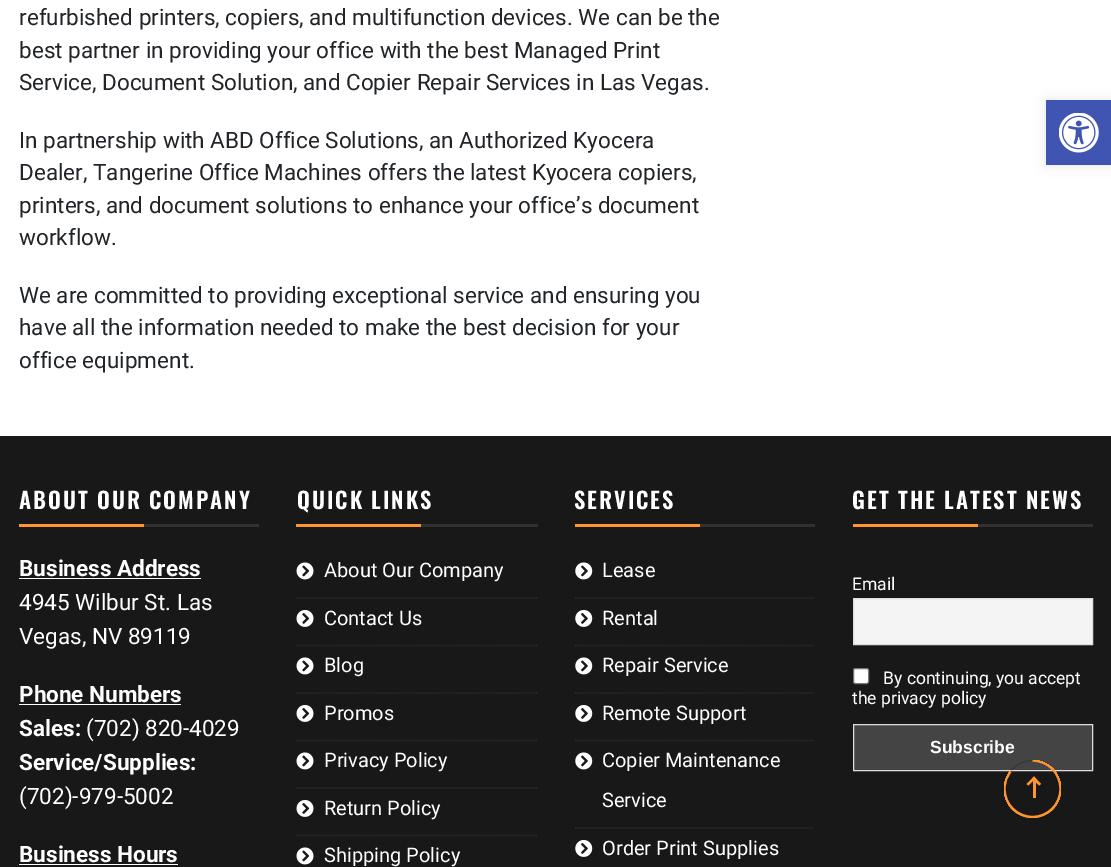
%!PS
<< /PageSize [1111 867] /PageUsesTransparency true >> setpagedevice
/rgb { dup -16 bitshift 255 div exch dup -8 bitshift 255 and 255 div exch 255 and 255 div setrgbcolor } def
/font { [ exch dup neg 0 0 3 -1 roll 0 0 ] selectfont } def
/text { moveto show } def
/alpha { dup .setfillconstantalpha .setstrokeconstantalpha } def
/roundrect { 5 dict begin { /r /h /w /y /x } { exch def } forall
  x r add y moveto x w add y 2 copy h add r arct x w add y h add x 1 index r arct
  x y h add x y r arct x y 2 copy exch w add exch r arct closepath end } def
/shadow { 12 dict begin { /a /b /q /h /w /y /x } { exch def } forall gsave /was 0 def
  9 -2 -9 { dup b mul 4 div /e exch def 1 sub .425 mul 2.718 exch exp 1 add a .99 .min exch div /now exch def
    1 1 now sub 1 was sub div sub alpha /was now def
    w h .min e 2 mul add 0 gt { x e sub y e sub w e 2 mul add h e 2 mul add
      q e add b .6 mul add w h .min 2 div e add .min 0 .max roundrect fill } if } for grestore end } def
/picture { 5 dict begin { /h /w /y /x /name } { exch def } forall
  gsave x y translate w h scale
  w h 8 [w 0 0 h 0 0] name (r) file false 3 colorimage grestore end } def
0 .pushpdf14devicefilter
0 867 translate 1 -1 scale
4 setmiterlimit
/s1 { /Roboto-Regular 22.5 font 16#212529 rgb } def
/s2 { /Roboto-Bold 22.5 font 16#FFFFFF rgb } def
/s3 { /Roboto-Regular 22.5 font 16#FFFFFF rgb } def
/s4 { /Roboto-Regular 20 font 16#FFFFFF rgb } def
/s5 { /Roboto-Regular 17.5 font 16#FFFFFF rgb } def
/s6 { /LiberationSans-Bold 17.5 font 16#FFFFFF rgb } def
16#FFFFFF rgb
0 0 1111 867 rectfill
s1
(refurbished printers, copiers, and multifunction devices. We can be the) 19 25 text
(best partner in providing your office with the best Managed Print) 19 58 text
(Service, Document Solution, and Copier Repair Services in Las Vegas.) 19 90 text
(In partnership with ABD Office Solutions, an Authorized Kyocera) 19 148 text
(Dealer, Tangerine Office Machines offers the latest Kyocera copiers,) 19 180 text
(printers, and document solutions to enhance your office’s document) 19 213 text
(workflow.) 19 245 text
(We are committed to providing exceptional service and ensuring you) 19 303 text
(have all the information needed to make the best decision for your) 19 335 text
(office equipment.) 19 368 text
16#191818 rgb
0 436 1111 431 rectfill
16#313131 rgb
144 524 115 3 rectfill
/Oswald-SemiBold 22.5 font
16#FFFFFF rgb
19 509 moveto 1.9 0 (ABOUT OUR COMPANY) ashow
16#FF952F rgb
19 524 125 3 rectfill
s2
(Business Address) 19 576 text
19 578 182 1 rectfill
s3
(4945 Wilbur St. Las) 19 610 text
(Vegas, NV 89119) 19 644 text
s2
(Phone Numbers) 19 702 text
19 704 162 1 rectfill
(Sales:) 19 736 text
s3
(\(702\) 820-4029) 86 736 text
s2
(Service/Supplies:) 19 770 text
s3
(\(702\)-979-5002) 19 804 text
s2
(Business Hours) 19 862 text
19 864 159 1 rectfill
16#313131 rgb
421 524 117 3 rectfill
/Oswald-SemiBold 22.5 font
16#FFFFFF rgb
297 509 moveto 1.9 0 (QUICK LINKS) ashow
16#FF952F rgb
296 524 125 3 rectfill
16#2E2E2E rgb
1.2 setlinewidth
[1.25 1.25] 0 setdash
296 598 moveto 537.5 598 lineto stroke
(pic1.raw) 296 562 18 18 picture
s4
(About Our Company) 324 577 text
16#2E2E2E rgb
296 645.5 moveto 537.5 645.5 lineto stroke
(pic2.raw) 296 610 18 17 picture
s4
(Contact Us) 324 625 text
16#2E2E2E rgb
296 693 moveto 537.5 693 lineto stroke
(pic1.raw) 296 657 18 18 picture
s4
(Blog) 324 672 text
16#2E2E2E rgb
296 740.5 moveto 537.5 740.5 lineto stroke
(pic2.raw) 296 705 18 17 picture
s4
(Promos) 324 720 text
16#2E2E2E rgb
296 788 moveto 537.5 788 lineto stroke
(pic1.raw) 296 752 18 18 picture
s4
(Privacy Policy) 324 767 text
16#2E2E2E rgb
296 835.5 moveto 537.5 835.5 lineto stroke
(pic2.raw) 296 800 18 17 picture
s4
(Return Policy) 324 815 text
(pic1.raw) 296 847 18 18 picture
(Shipping Policy) 324 862 text
16#313131 rgb
700 524 115 3 rectfill
/Oswald-SemiBold 22.5 font
16#FFFFFF rgb
574 509 moveto 1.9 0 (SERVICES) ashow
16#FF952F rgb
575 524 125 3 rectfill
16#2E2E2E rgb
575 598 moveto 815 598 lineto stroke
(pic3.raw) 575 562 18 18 picture
s4
(Lease) 602 577 text
16#2E2E2E rgb
575 645.5 moveto 815 645.5 lineto stroke
(pic4.raw) 575 610 18 17 picture
s4
(Rental) 602 625 text
16#2E2E2E rgb
575 693 moveto 815 693 lineto stroke
(pic3.raw) 575 657 18 18 picture
s4
(Repair Service) 602 672 text
16#2E2E2E rgb
575 740.5 moveto 815 740.5 lineto stroke
(pic4.raw) 575 705 18 17 picture
s4
(Remote Support) 602 720 text
16#2E2E2E rgb
575 828 moveto 815 828 lineto stroke
(pic3.raw) 575 752 18 18 picture
s4
(Copier Maintenance) 602 767 text
(Service) 602 807 text
(pic4.raw) 575 840 18 17 picture
(Order Print Supplies) 602 855 text
16#313131 rgb
978 524 115 3 rectfill
/Oswald-SemiBold 22.5 font
16#FFFFFF rgb
852 509 moveto 1.9 0 (GET THE LATEST NEWS) ashow
16#FF952F rgb
853 524 125 3 rectfill
s5
(Email) 852 590 text
16#F4F4F4 rgb
853.5 598.5 moveto 1092.5 598.5 lineto 1092.5 644.5 lineto 853.5 644.5 lineto closepath gsave fill grestore
16#DDDDDD rgb
1 setlinewidth
[] 0 setdash
stroke
16#FFFFFF rgb
853.5 668.5 15 15 2 roundrect gsave fill grestore
16#767676 rgb
stroke
s5
(By continuing, you accept) 883 684 text
(the privacy policy) 852 704 text
16#444444 rgb
853.5 724.5 moveto 1092.5 724.5 lineto 1092.5 770.5 lineto 853.5 770.5 lineto closepath gsave fill grestore
16#DDDDDD rgb
stroke
s6
(Subscribe) 930 753 text
16#000000 rgb
1046 100 65 65 0 6 0.1 shadow
16#4054B2 rgb
1046 100 65 65 rectfill
(pic5.raw) 1059 113 40 40 picture
0.2 alpha
16#000000 rgb
1004.5 760.5 56 57 28 roundrect stroke
gsave
1004 760 57 58 28.5 roundrect clip newpath
1 alpha
16#FF952F rgb
2.3 setlinewidth
1032.5 760.5 moveto 1048 760.5 1060.5 773 1060.5 789 curveto 1060.5 804.5 1048 817 1032.5 817 curveto 1017 817 1004.5 804.5 1004.5 789 curveto 1004.5 782 1006.5 776 1010.5 771.5 curveto stroke
grestore
1 alpha
16#FF952F rgb
1035.5 778.5 moveto 1028.5 785.5 lineto 1026.5 784 lineto 1034 776.5 lineto closepath fill
1041 784 moveto 1039 785.5 lineto 1032 778.5 lineto 1034 776.5 lineto closepath fill
1033 780 3 18 rectfill
.poppdf14devicefilter showpage
